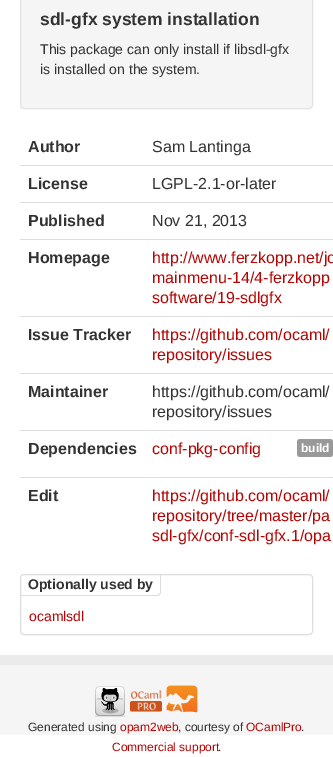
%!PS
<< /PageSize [333 757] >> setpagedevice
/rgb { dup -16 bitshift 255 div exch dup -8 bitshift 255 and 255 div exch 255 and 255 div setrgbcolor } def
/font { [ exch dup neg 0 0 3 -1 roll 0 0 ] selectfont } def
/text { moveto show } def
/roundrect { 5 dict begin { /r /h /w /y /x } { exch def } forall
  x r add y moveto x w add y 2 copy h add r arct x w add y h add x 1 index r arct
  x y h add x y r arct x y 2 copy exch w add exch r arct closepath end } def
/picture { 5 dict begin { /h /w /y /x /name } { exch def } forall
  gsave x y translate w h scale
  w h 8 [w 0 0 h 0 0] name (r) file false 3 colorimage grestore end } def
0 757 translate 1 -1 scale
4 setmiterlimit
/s1 { /LiberationSans-Bold 17.5 font 16#333333 rgb } def
/s2 { /LiberationSans-Regular 14 font 16#333333 rgb } def
/s3 { /LiberationSans-Bold 16 font 16#333333 rgb } def
/s4 { /LiberationSans-Regular 16 font 16#333333 rgb } def
/s5 { /LiberationSans-Regular 16 font 16#B40404 rgb } def
/s6 { /LiberationSans-Bold 12 font 16#FFFFFF rgb } def
/s7 { /LiberationSans-Bold 14 font 16#333333 rgb } def
/s8 { /LiberationSans-Regular 14 font 16#B40404 rgb } def
/s9 { /LiberationSans-Regular 12 font 16#333333 rgb } def
/s10 { /LiberationSans-Regular 12 font 16#B40404 rgb } def
16#FFFFFF rgb
0 0 333 757 rectfill
16#F5F5F5 rgb
20.5 -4.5 292 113 3.5 roundrect gsave fill grestore
16#E3E3E3 rgb
stroke
s1
(sdl-gfx system installation) 40 25 text
s2
(This package can only install if libsdl-gfx) 40 54 text
(is installed on the system.) 40 74 text
s3
(Author) 28 152 text
s4
(Sam Lantinga) 152 152 text
s3
(License) 28 189 text
16#DDDDDD rgb
20 165 313 1 rectfill
s4
(LGPL-2.1-or-later) 152 189 text
s3
(Published) 28 226 text
16#DDDDDD rgb
20 202 313 1 rectfill
s4
(Nov 21, 2013) 152 226 text
s3
(Homepage) 28 263 text
16#DDDDDD rgb
20 239 313 1 rectfill
s5
(http://www.ferzkopp.net/jo) 152 263 text
(mainmenu-14/4-ferzkopp) 152 283 text
(software/19-sdlgfx) 152 303 text
s3
(Issue Tracker) 28 340 text
16#DDDDDD rgb
20 316 313 1 rectfill
s5
(https://github.com/ocaml/) 152 340 text
(repository/issues) 152 360 text
s3
(Maintainer) 28 397 text
16#DDDDDD rgb
20 373 313 1 rectfill
s4
(https://github.com/ocaml/) 152 397 text
(repository/issues) 152 417 text
s3
(Dependencies) 28 454 text
16#DDDDDD rgb
20 430 313 1 rectfill
s5
(conf-pkg-config) 152 454 text
16#999999 rgb
297 439 36 18 3 roundrect fill
s6
(build) 301 452 text
s3
(Edit) 28 501 text
16#DDDDDD rgb
20 477 313 1 rectfill
s5
(https://github.com/ocaml/) 152 501 text
(repository/tree/master/pa) 152 521 text
(sdl-gfx/conf-sdl-gfx.1/opa) 152 541 text
16#DDDDDD rgb
20.5 574.5 292 60 3.5 roundrect stroke
161 575 moveto 161 592 lineto 161 594 159 596 157 596 curveto 21 596 lineto 21 595 lineto 157 595 lineto 159 595 160 594 160 592 curveto 160 575 lineto closepath fill
s7
(Optionally used by) 28 589 text
s8
(ocamlsdl) 29 621 text
16#F5F5F5 rgb
0 665 333 70 rectfill
16#EBEBEB rgb
0 655 333 10 rectfill
(pic1.raw) 95 686 31 31 picture
(pic2.raw) 130 690 32 22 picture
(pic3.raw) 166 685 32 28 picture
s9
(Generated using) 28 731 text
s10
(opam2web) 120 731 text
s9
(, courtesy of) 178 731 text
s10
(OCamlPro) 246 731 text
s9
(.) 301 731 text
s10
(Commercial support) 112 751 text
s9
(.) 218 751 text
showpage
